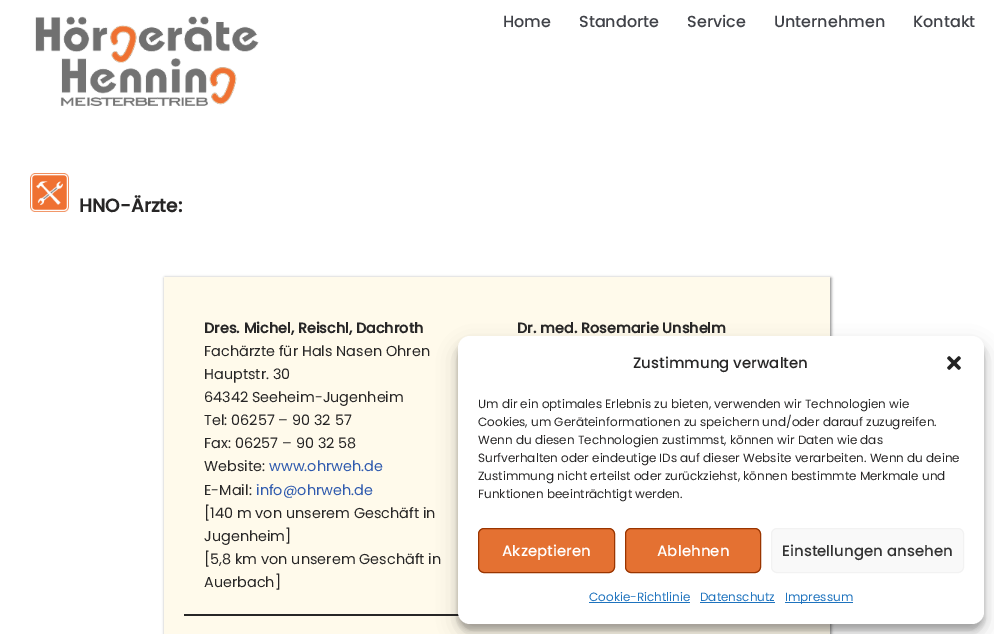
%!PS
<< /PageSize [994 634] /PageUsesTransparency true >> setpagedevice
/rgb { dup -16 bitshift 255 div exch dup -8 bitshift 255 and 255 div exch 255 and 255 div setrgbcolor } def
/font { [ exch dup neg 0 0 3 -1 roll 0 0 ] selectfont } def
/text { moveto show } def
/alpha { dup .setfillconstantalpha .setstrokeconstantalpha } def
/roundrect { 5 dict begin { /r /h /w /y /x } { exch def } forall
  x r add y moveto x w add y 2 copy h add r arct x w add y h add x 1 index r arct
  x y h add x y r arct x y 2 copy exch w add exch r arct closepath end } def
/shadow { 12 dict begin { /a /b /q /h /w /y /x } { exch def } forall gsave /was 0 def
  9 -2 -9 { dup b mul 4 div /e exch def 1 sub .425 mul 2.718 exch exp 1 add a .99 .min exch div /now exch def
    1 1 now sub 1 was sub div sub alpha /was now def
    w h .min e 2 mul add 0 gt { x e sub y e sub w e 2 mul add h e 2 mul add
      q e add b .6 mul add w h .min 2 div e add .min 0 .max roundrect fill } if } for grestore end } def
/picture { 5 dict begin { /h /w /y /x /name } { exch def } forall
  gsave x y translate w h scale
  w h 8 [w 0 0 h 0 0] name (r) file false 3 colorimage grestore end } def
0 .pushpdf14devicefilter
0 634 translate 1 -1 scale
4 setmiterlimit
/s1 { /Poppins-Medium 16 font 16#404248 rgb } def
/s2 { /Poppins-Bold 18.5 font 16#272626 rgb } def
/s3 { /Poppins-Bold 14.4 font 16#272626 rgb } def
/s4 { /Poppins-Regular 14.4 font 16#272626 rgb } def
/s5 { /Poppins-Regular 14.4 font 16#2F5AAE rgb } def
/s6 { /Poppins-Medium 15 font 16#272626 rgb } def
/s7 { /Poppins-Regular 12 font 16#272626 rgb } def
/s8 { /Poppins-Medium 15 font 16#FFFFFF rgb } def
/s9 { /Poppins-Medium 15 font 16#333333 rgb } def
/s10 { /Poppins-Regular 12 font 16#1E73BE rgb } def
16#FFFFFF rgb
0 0 994 634 rectfill
(pic1.raw) 35 16 224 90 picture
s1
(Home) 503 27 text
(Standorte) 579 27 text
(Service) 687 27 text
(Unternehmen) 774 27 text
(Kontakt) 913 27 text
(pic2.raw) 30 173 39 39 picture
s2
(HNO-Ärzte:) 79 212 text
16#FFFAEB rgb
164 277 666 357 rectfill
gsave
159 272 moveto 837 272 lineto 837 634 lineto 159 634 lineto closepath 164 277 moveto 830 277 lineto 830 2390 lineto 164 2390 lineto closepath eoclip newpath
16#000000 rgb
165 278 666 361 0 1.5 0.5 shadow
grestore
16#272626 rgb
184 614 275 2 rectfill
s3
(Dres. Michel, Reischl, Dachroth) 204 333 text
s4
(Fachärzte für Hals Nasen Ohren) 204 356 text
(Hauptstr. 30) 204 379 text
(64342 Seeheim-Jugenheim) 204 402 text
(Tel: 06257 – 90 32 57) 204 425 text
(Fax: 06257 – 90 32 58) 204 448 text
(Website:) 204 471 text
s5
(www.ohrweh.de) 269 471 text
s4
(E-Mail:) 204 495 text
s5
(info@ohrweh.de) 256 495 text
s4
([140 m von unserem Geschäft in) 204 518 text
(Jugenheim]) 204 541 text
([5,8 km von unserem Geschäft in) 204 564 text
(Auerbach]) 204 587 text
s3
(Dr. med. Rosemarie Unshelm) 517 333 text
16#000000 rgb
458 342 526 288 12 3 0.23 shadow
458 346 526 288 12 10 0.19 shadow
16#FFFFFF rgb
458 336 526 288 12 roundrect fill
s6
(Zustimmung verwalten) 633 368 text
(pic3.raw) 947 356 14 14 picture
s7
(Um dir ein optimales Erlebnis zu bieten, verwenden wir Technologien wie) 478 408 text
(Cookies, um Geräteinformationen zu speichern und/oder darauf zuzugreifen.) 478 426 text
(Wenn du diesen Technologien zustimmst, können wir Daten wie das) 478 444 text
(Surfverhalten oder eindeutige IDs auf dieser Website verarbeiten. Wenn du deine) 478 462 text
(Zustimmung nicht erteilst oder zurückziehst, können bestimmte Merkmale und) 478 480 text
(Funktionen beeinträchtigt werden.) 478 498 text
16#E47132 rgb
478.5 528.5 136 44 5.5 roundrect gsave fill grestore
16#9A3500 rgb
stroke
s8
(Akzeptieren) 502 556 text
16#E47132 rgb
625.5 528.5 135 44 5.5 roundrect gsave fill grestore
16#9A3500 rgb
stroke
s8
(Ablehnen) 657 556 text
16#F9F9F9 rgb
771.5 528.5 192 44 5.5 roundrect gsave fill grestore
16#F2F2F2 rgb
stroke
s9
(Einstellungen ansehen) 782 556 text
s10
(Cookie-Richtlinie) 589 601 text
589 602 101 1 rectfill
(Datenschutz) 700 601 text
700 602 75 1 rectfill
785 602 68 1 rectfill
(Impressum) 785 601 text
.poppdf14devicefilter showpage
